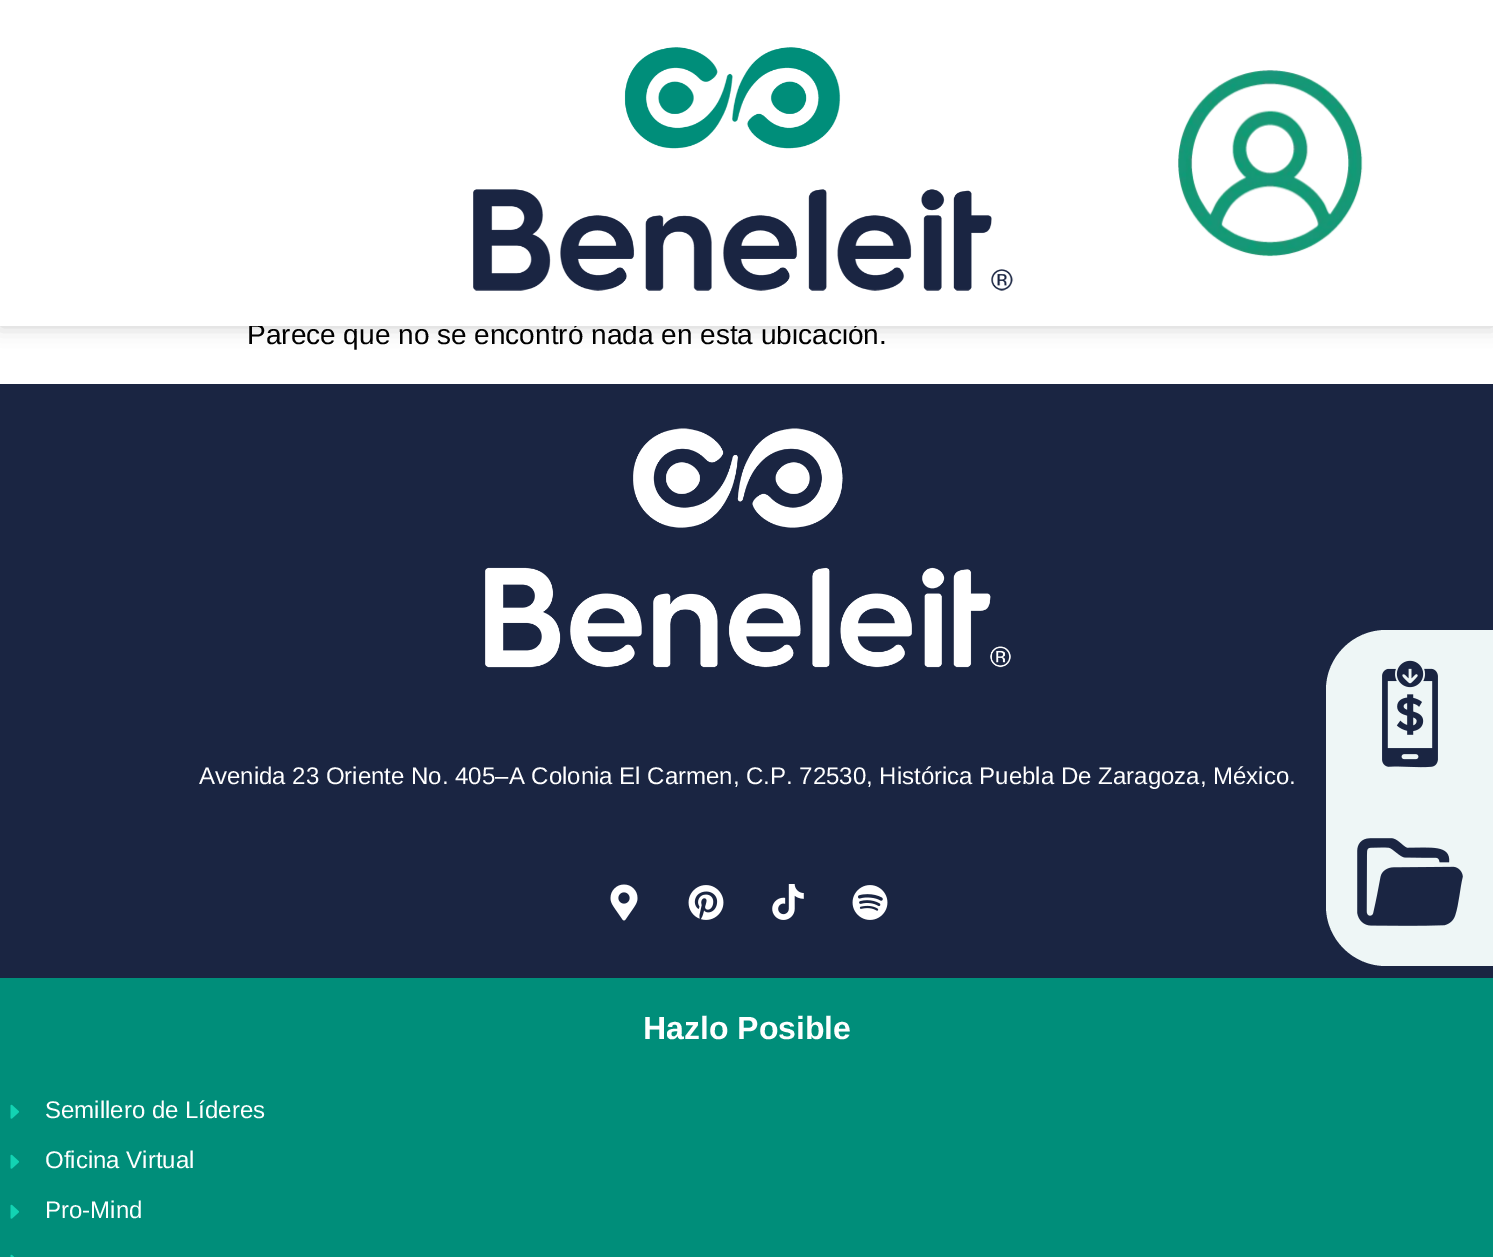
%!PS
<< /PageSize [1493 1257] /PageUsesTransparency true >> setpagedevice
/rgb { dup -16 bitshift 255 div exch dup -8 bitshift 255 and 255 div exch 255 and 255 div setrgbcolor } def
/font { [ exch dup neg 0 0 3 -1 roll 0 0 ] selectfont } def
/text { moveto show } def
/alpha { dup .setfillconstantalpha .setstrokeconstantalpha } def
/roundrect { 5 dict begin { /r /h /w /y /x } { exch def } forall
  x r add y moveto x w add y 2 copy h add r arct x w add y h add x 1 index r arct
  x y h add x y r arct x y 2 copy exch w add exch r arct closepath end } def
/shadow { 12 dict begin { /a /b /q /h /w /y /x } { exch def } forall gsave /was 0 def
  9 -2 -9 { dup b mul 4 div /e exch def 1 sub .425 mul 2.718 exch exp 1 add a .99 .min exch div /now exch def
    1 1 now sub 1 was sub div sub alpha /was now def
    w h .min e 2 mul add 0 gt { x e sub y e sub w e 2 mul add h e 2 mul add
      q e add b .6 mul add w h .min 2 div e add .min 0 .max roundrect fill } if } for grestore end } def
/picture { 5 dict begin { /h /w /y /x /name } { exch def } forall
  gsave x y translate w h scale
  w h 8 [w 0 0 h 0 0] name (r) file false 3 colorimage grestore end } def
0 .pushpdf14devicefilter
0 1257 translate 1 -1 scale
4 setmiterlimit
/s1 { /LiberationSans-Regular 28 font 16#000000 rgb } def
/s2 { /LiberationSans-Regular 24 font 16#FFFFFF rgb } def
/s3 { /LiberationSans-Bold 32 font 16#FFFFFF rgb } def
16#FFFFFF rgb
0 0 1493 1257 rectfill
16#CACACA rgb
0 0 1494 326 0 10 1 shadow
s1
(Parece que no se encontró nada en esta ubicación.) 247 344 text
16#FFFFFF rgb
0 0 1493 326 rectfill
(pic1.raw) 473 47 541 244 picture
(pic2.raw) 1178 70 185 187 picture
16#1A2542 rgb
0 384 1493 594 rectfill
16#EEF6F6 rgb
1386 630 moveto 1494 630 lineto 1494 966 lineto 1386 966 lineto 1353 966 1326 939 1326 906 curveto 1326 690 lineto 1326 657 1353 630 1386 630 curveto closepath fill
(pic3.raw) 1382 660 56 108 picture
(pic4.raw) 1357 838 106 88 picture
16#008E7A rgb
0 978 1493 279 rectfill
(pic5.raw) 485 428 526 240 picture
s2
(Avenida 23 Oriente No. 405–A Colonia El Carmen, C.P. 72530, Histórica Puebla De Zaragoza, México.) 199 784 text
(pic6.raw) 610 884 28 37 picture
(pic7.raw) 688 885 36 35 picture
(pic8.raw) 772 884 32 36 picture
(pic9.raw) 852 885 36 35 picture
s3
(Hazlo Posible) 643 1039 text
(pic10.raw) 10 1104 9 15 picture
s2
(Semillero de Líderes) 45 1118 text
(pic10.raw) 10 1154 9 15 picture
(Oficina Virtual) 45 1168 text
(pic10.raw) 10 1204 9 15 picture
(Pro-Mind) 45 1218 text
(pic11.raw) 10 1254 4 3 picture
.poppdf14devicefilter showpage
